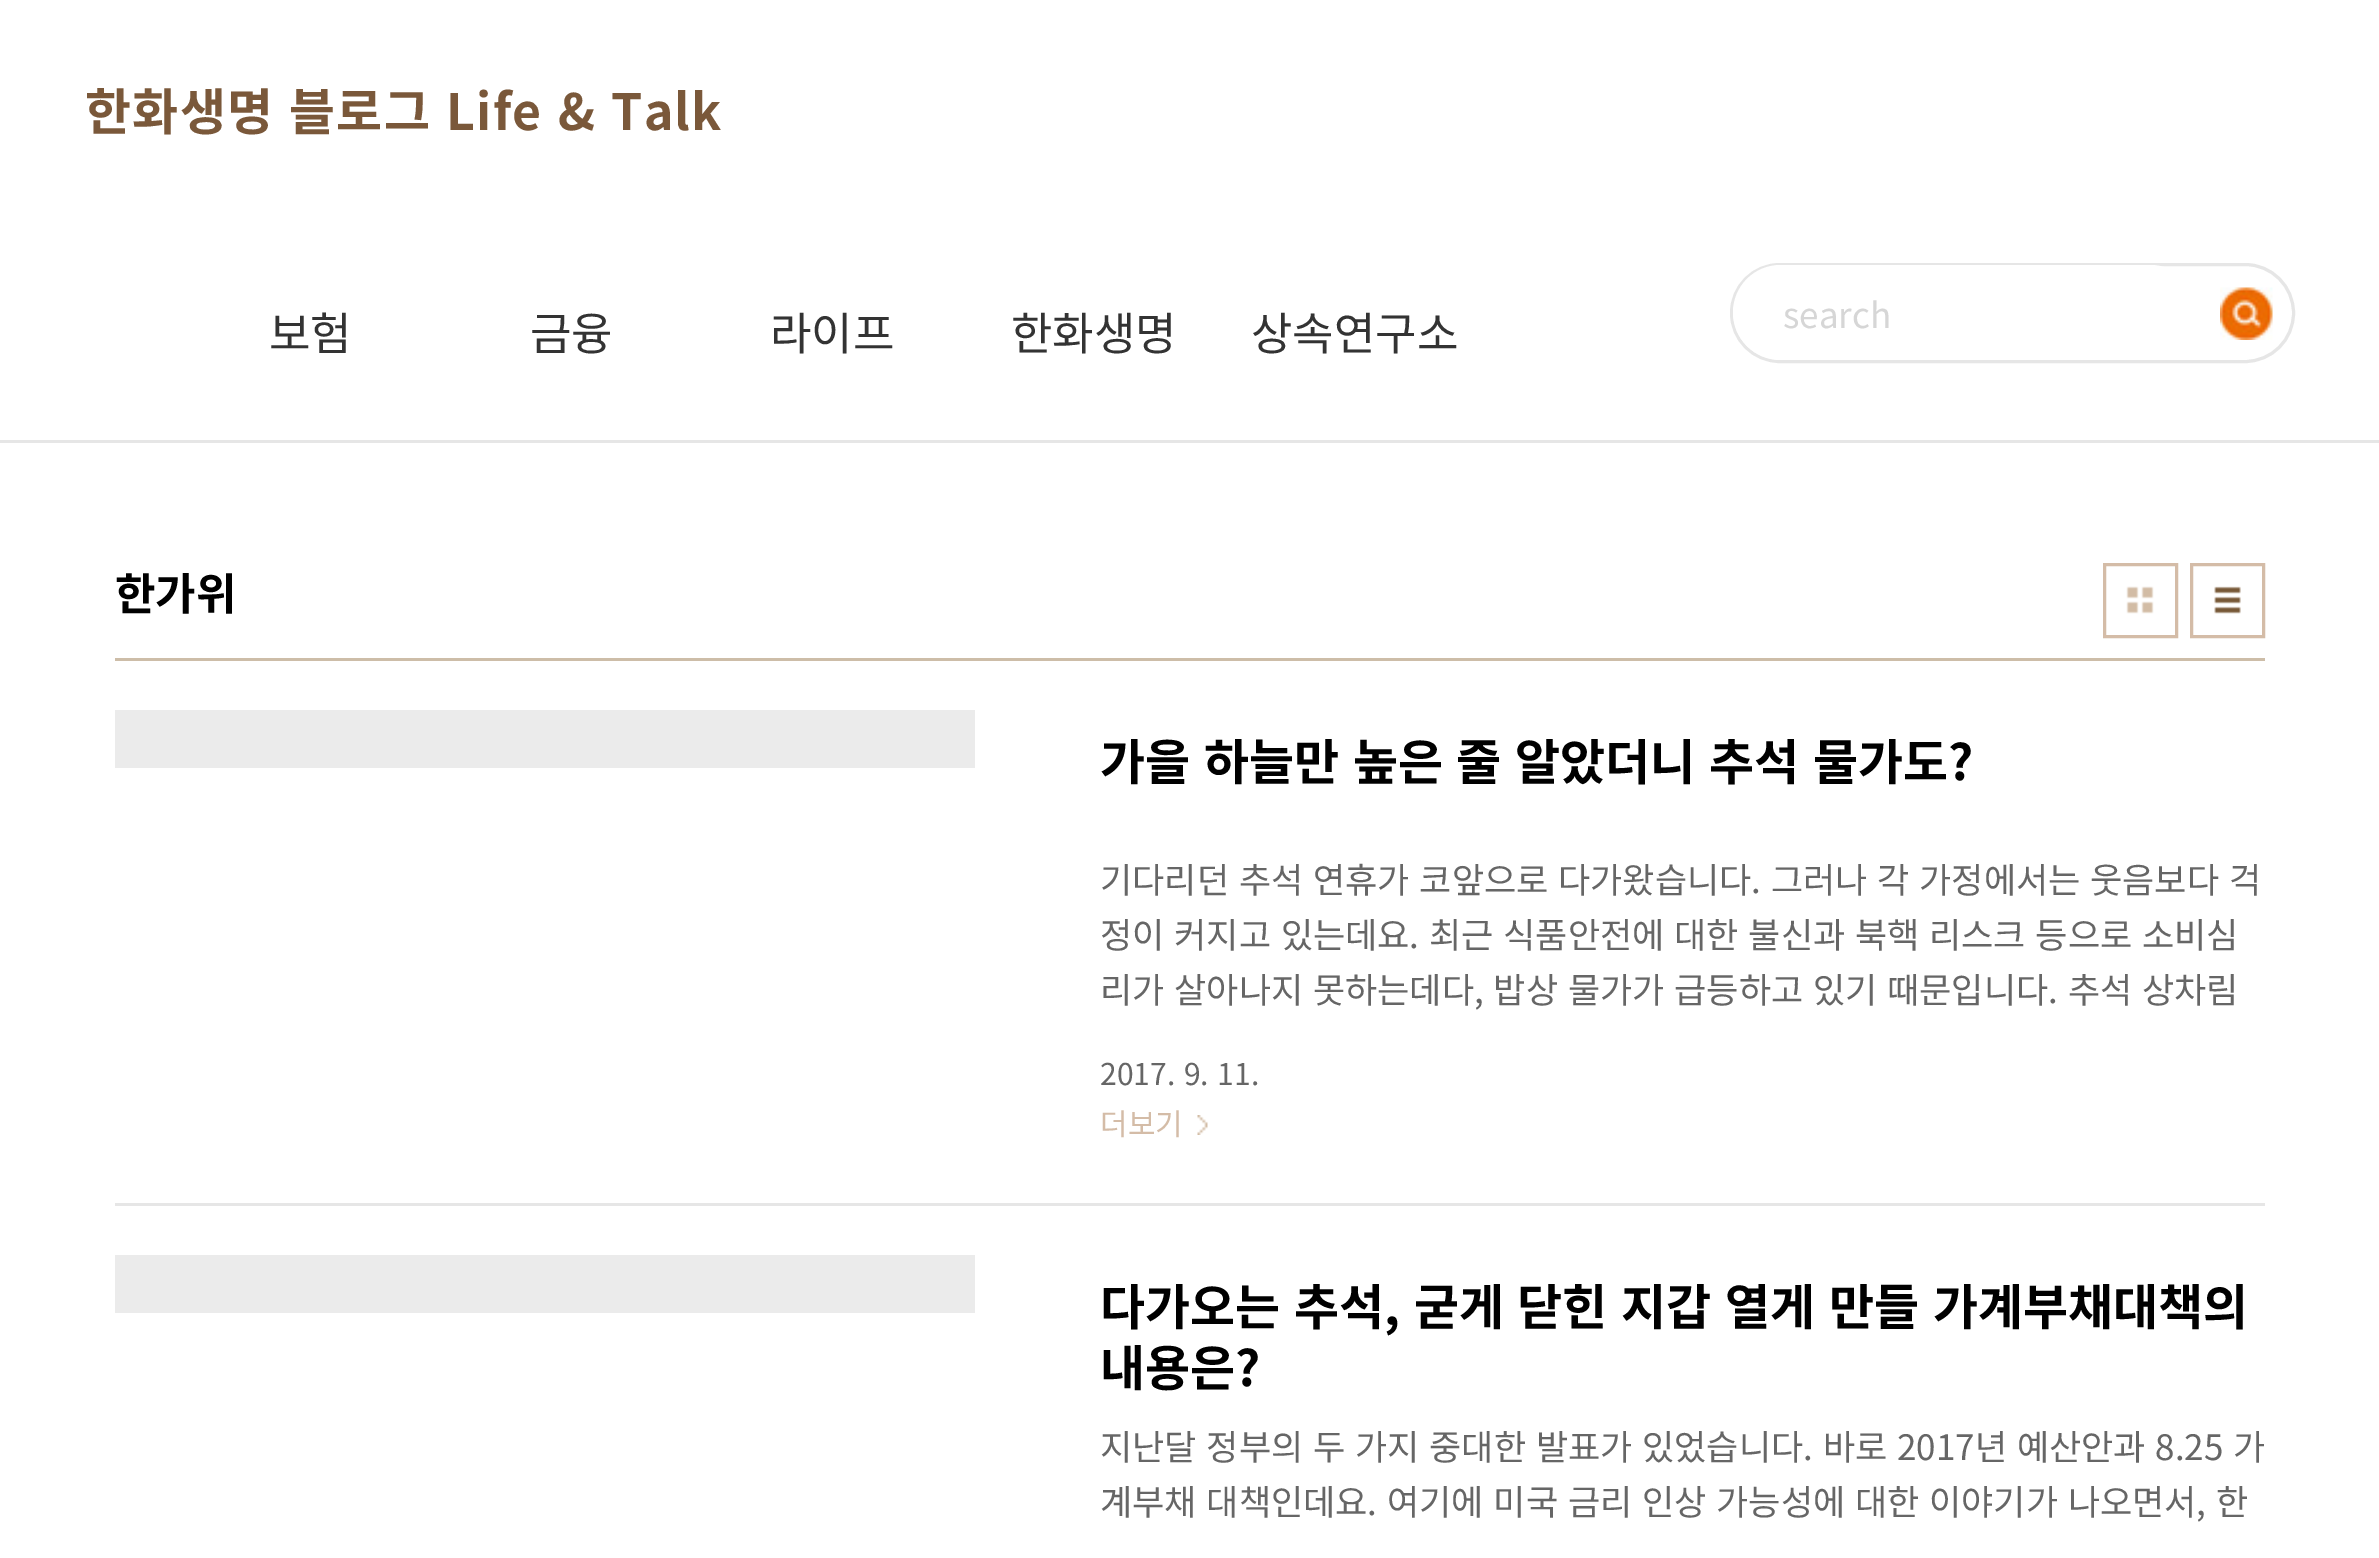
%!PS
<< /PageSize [2379 1558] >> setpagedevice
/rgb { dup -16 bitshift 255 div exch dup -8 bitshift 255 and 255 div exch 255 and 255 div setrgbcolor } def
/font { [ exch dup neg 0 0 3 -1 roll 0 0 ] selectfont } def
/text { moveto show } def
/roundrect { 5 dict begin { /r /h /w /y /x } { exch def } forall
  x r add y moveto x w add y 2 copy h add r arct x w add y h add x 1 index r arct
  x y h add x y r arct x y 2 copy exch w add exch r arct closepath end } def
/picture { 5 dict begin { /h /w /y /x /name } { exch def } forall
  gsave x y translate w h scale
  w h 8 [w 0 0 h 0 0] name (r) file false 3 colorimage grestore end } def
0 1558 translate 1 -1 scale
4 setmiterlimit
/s1 { /NotoSansKR-Regular 45 font 16#333333 rgb } def
/s2 { /NotoSansKR-Regular 35 font 16#D6D6D6 rgb } def
/s3 { /NotoSansKR-Bold 44 font 16#000000 rgb } def
/s4 { /NotoSansKR-Regular 30 font 16#D4BCA7 rgb } def
/s5 { /NotoSansKR-Bold 49 font 16#000000 rgb } def
16#FFFFFF rgb
0 0 2379 1558 rectfill
16#E6E6E6 rgb
0 440 2379 3 rectfill
/NotoSansKR-Bold 50 font
16#7A583A rgb
85 130 moveto 2.5 0 32 1.25 0 (한화생명 블로그 Life & Talk) awidthshow
s1
(보험) 269 350 text
(금융) 530 350 text
(라이프) 770 350 text
(한화생명) 1011 350 text
(상속연구소) 1251 350 text
16#E6E6E6 rgb
3 setlinewidth
1731.5 264.5 562 97 48.5 roundrect stroke
16#FFFFFF rgb
1733 265 465 95 47.5 roundrect fill
s2
(search) 1783 328 text
(pic1.raw) 2220 287 53 53 picture
16#CDBDA8 rgb
115 658 2150 3 rectfill
s3
(한가위) 115 610 text
(pic2.raw) 2126 586 28 28 picture
16#D4BCA7 rgb
2104.5 564.5 72 72 rectstroke
(pic3.raw) 2214 586 27 28 picture
2191.5 564.5 72 72 rectstroke
16#E6E6E6 rgb
115 1203 2150 3 rectfill
16#EBEBEB rgb
115 710 860 58 rectfill
/NotoSansKR-Bold 49 font
16#000000 rgb
1100 780 moveto 2.5 0 32 (가을 하늘만 높은 줄 알았더니 추석 물가도?) widthshow
/NotoSansKR-Regular 35 font
16#666666 rgb
1100 893 moveto 2 0 32 (기다리던 추석 연휴가 코앞으로 다가왔습니다. 그러나 각 가정에서는 웃음보다 걱) widthshow
1100 948 moveto 2 0 32 (정이 커지고 있는데요. 최근 식품안전에 대한 불신과 북핵 리스크 등으로 소비심) widthshow
1100 1003 moveto 2 0 32 (리가 살아나지 못하는데다, 밥상 물가가 급등하고 있기 때문입니다. 추석 상차림) widthshow
/NotoSansKR-Regular 30 font
1100 1085 moveto 2 0 32 (2017. 9. 11.) widthshow
s4
(더보기) 1100 1135 text
(pic4.raw) 1197 1115 11 20 picture
16#EBEBEB rgb
115 1255 860 58 rectfill
/NotoSansKR-Bold 49 font
16#000000 rgb
1100 1325 moveto 2.5 0 32 (다가오는 추석, 굳게 닫힌 지갑 열게 만들 가계부채대책의) widthshow
(내용은?) 1100 1386 text
/NotoSansKR-Regular 35 font
16#666666 rgb
1100 1460 moveto 2 0 32 (지난달 정부의 두 가지 중대한 발표가 있었습니다. 바로 2017년 예산안과 8.25 가) widthshow
1100 1515 moveto 2 0 32 (계부채 대책인데요. 여기에 미국 금리 인상 가능성에 대한 이야기가 나오면서, 한) widthshow
showpage
